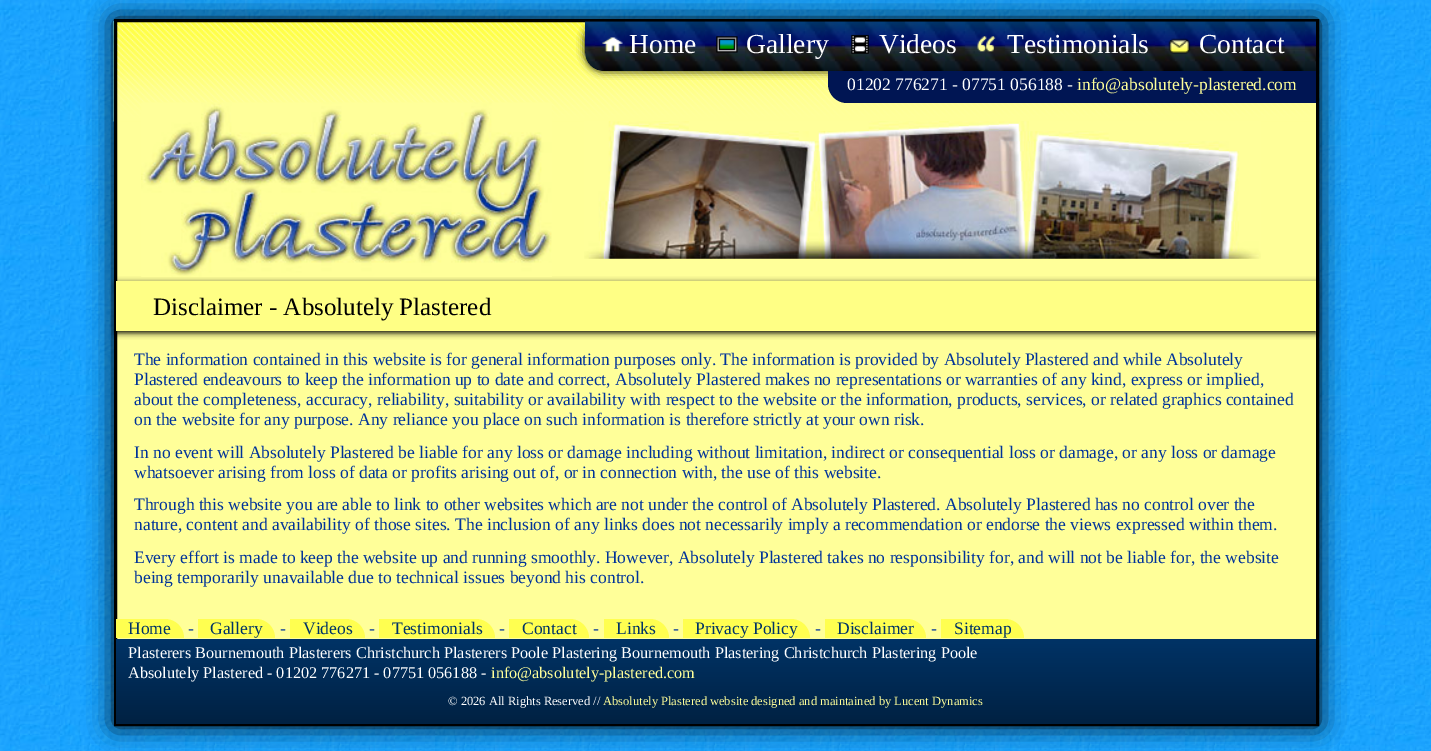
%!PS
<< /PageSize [1431 751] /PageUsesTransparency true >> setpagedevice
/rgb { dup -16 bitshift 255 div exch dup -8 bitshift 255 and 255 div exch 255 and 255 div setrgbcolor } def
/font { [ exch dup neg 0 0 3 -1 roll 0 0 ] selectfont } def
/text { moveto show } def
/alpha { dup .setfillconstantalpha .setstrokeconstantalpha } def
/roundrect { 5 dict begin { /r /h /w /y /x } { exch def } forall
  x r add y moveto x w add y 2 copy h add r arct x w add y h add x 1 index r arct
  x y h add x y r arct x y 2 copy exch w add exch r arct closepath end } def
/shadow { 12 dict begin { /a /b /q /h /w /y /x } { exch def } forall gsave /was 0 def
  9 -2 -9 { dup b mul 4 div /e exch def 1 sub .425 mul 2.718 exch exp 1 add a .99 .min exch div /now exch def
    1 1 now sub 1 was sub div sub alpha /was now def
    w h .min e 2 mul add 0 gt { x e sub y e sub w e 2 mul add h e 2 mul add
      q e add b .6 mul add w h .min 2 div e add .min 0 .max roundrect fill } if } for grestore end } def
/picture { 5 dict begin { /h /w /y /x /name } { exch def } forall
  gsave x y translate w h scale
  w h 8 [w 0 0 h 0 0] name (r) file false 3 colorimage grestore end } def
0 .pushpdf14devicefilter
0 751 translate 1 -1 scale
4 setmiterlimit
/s1 { /LiberationSerif-Regular 27.5 font 16#FFFFFF rgb } def
/s2 { /LiberationSerif-Regular 17.5 font 16#FFFFFF rgb } def
/s3 { /LiberationSerif-Regular 17.5 font 16#FFFF99 rgb } def
/s4 { /LiberationSerif-Regular 25 font 16#000000 rgb } def
/s5 { /LiberationSerif-Regular 17.5 font 16#003399 rgb } def
/s6 { /LiberationSerif-Regular 17.5 font 16#003366 rgb } def
/s7 { /LiberationSerif-Regular 16.25 font 16#FFFFFF rgb } def
/s8 { /LiberationSerif-Regular 16.25 font 16#FFFF99 rgb } def
/s9 { /LiberationSerif-Regular 12.5 font 16#FFFFFF rgb } def
/s10 { /LiberationSerif-Regular 12.5 font 16#FFFF99 rgb } def
16#FFFFFF rgb
0 0 1431 751 rectfill
(pic1.raw) 0 0 1431 751 picture
16#000000 rgb
114 19 1205 707 0 12.5 1 shadow
16#FFFF99 rgb
117 121 1199 518 rectfill
(pic2.raw) 113 21 1203 101 picture
16#000000 rgb
3 setlinewidth
115.5 20.5 1202 704 rectstroke
gsave
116 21 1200 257 rectclip
585 21 731 50 19 4 1 shadow
grestore
(pic3.raw) 585 21 731 51 picture
(pic4.raw) 602 37 21 15 picture
s1
(Home) 629 53 text
(pic5.raw) 716 36 22 17 picture
(Gallery) 746 53 text
(pic6.raw) 851 34 18 20 picture
(Videos) 879 53 text
(pic7.raw) 977 36 19 16 picture
(Testimonials) 1007 53 text
(pic8.raw) 1168 38 23 16 picture
(Contact) 1199 53 text
16#001553 rgb
828 71 moveto 1316 71 lineto 1316 103 lineto 847 103 lineto 836.5 103 828 94.5 828 84 curveto closepath fill
s2
(01202 776271 - 07751 056188 -) 847 90 text
s3
(info@absolutely-plastered.com) 1077 90 text
16#000000 rgb
116 283 1200 50 0 3 1 shadow
(pic9.raw) 141 102 411 175 picture
(pic10.raw) 584 121 677 138 picture
16#FFFF85 rgb
116 281 1200 50 rectfill
s4
(Disclaimer - Absolutely Plastered) 153 315 text
s5
(The information contained in this website is for general information purposes only. The information is provided by Absolutely Plastered and while Absolutely) 134 365 text
(Plastered endeavours to keep the information up to date and correct, Absolutely Plastered makes no representations or warranties of any kind, express or implied,) 134 385 text
(about the completeness, accuracy, reliability, suitability or availability with respect to the website or the information, products, services, or related graphics contained) 134 405 text
(on the website for any purpose. Any reliance you place on such information is therefore strictly at your own risk.) 134 425 text
(In no event will Absolutely Plastered be liable for any loss or damage including without limitation, indirect or consequential loss or damage, or any loss or damage) 134 458 text
(whatsoever arising from loss of data or profits arising out of, or in connection with, the use of this website.) 134 478 text
(Through this website you are able to link to other websites which are not under the control of Absolutely Plastered. Absolutely Plastered has no control over the) 134 510 text
(nature, content and availability of those sites. The inclusion of any links does not necessarily imply a recommendation or endorse the views expressed within them.) 134 530 text
(Every effort is made to keep the website up and running smoothly. However, Absolutely Plastered takes no responsibility for, and will not be liable for, the website) 134 563 text
(being temporarily unavailable due to technical issues beyond his control.) 134 583 text
16#FFFF50 rgb
116 619 moveto 165 619 lineto 175.5 619 184 627.5 184 638 curveto 116 638 lineto closepath fill
s6
(Home) 128 634 text
s5
(-) 188 634 text
16#FFFF50 rgb
198 619 moveto 256 619 lineto 266.5 619 275 627.5 275 638 curveto 198 638 lineto closepath fill
s6
(Gallery) 210 634 text
s5
(-) 280 634 text
16#FFFF50 rgb
290 619 moveto 346 619 lineto 356.5 619 365 627.5 365 638 curveto 290 638 lineto closepath fill
s6
(Videos) 303 634 text
s5
(-) 369 634 text
16#FFFF50 rgb
379 619 moveto 476 619 lineto 486.5 619 495 627.5 495 638 curveto 379 638 lineto closepath fill
s6
(Testimonials) 392 634 text
s5
(-) 499 634 text
16#FFFF50 rgb
509 619 moveto 570 619 lineto 580.5 619 589 627.5 589 638 curveto 509 638 lineto closepath fill
s6
(Contact) 522 634 text
s5
(-) 593 634 text
16#FFFF50 rgb
604 619 moveto 650 619 lineto 660.5 619 669 627.5 669 638 curveto 604 638 lineto closepath fill
s6
(Links) 616 634 text
s5
(-) 673 634 text
16#FFFF50 rgb
683 619 moveto 791 619 lineto 801.5 619 810 627.5 810 638 curveto 683 638 lineto closepath fill
s6
(Privacy Policy) 695 634 text
s5
(-) 815 634 text
16#FFFF50 rgb
825 619 moveto 907 619 lineto 917.5 619 926 627.5 926 638 curveto 825 638 lineto closepath fill
s6
(Disclaimer) 837 634 text
s5
(-) 931 634 text
16#FFFF50 rgb
941 619 moveto 1005 619 lineto 1015.5 619 1024 627.5 1024 638 curveto 941 638 lineto closepath fill
s6
(Sitemap) 954 634 text
gsave 116 639 moveto 1316 639 lineto 1316 724 lineto 116 724 lineto closepath clip newpath
<< /ShadingType 2 /ColorSpace /DeviceRGB /Coords [116 639 116 724] /Extend [true true] /Function << /FunctionType 2 /Domain [0 1] /C0 [0 0.2 0.4] /C1 [0 0.129 0.259] /N 1 >> >> shfill grestore
s7
(Plasterers Bournemouth Plasterers Christchurch Plasterers Poole Plastering Bournemouth Plastering Christchurch Plastering Poole) 128 658 text
(Absolutely Plastered - 01202 776271 - 07751 056188 -) 128 678 text
s8
(info@absolutely-plastered.com) 491 678 text
s9
(© 2026 All Rights Reserved //) 448 705 text
s10
(Absolutely Plastered website designed and maintained by Lucent Dynamics) 603 705 text
.poppdf14devicefilter showpage
